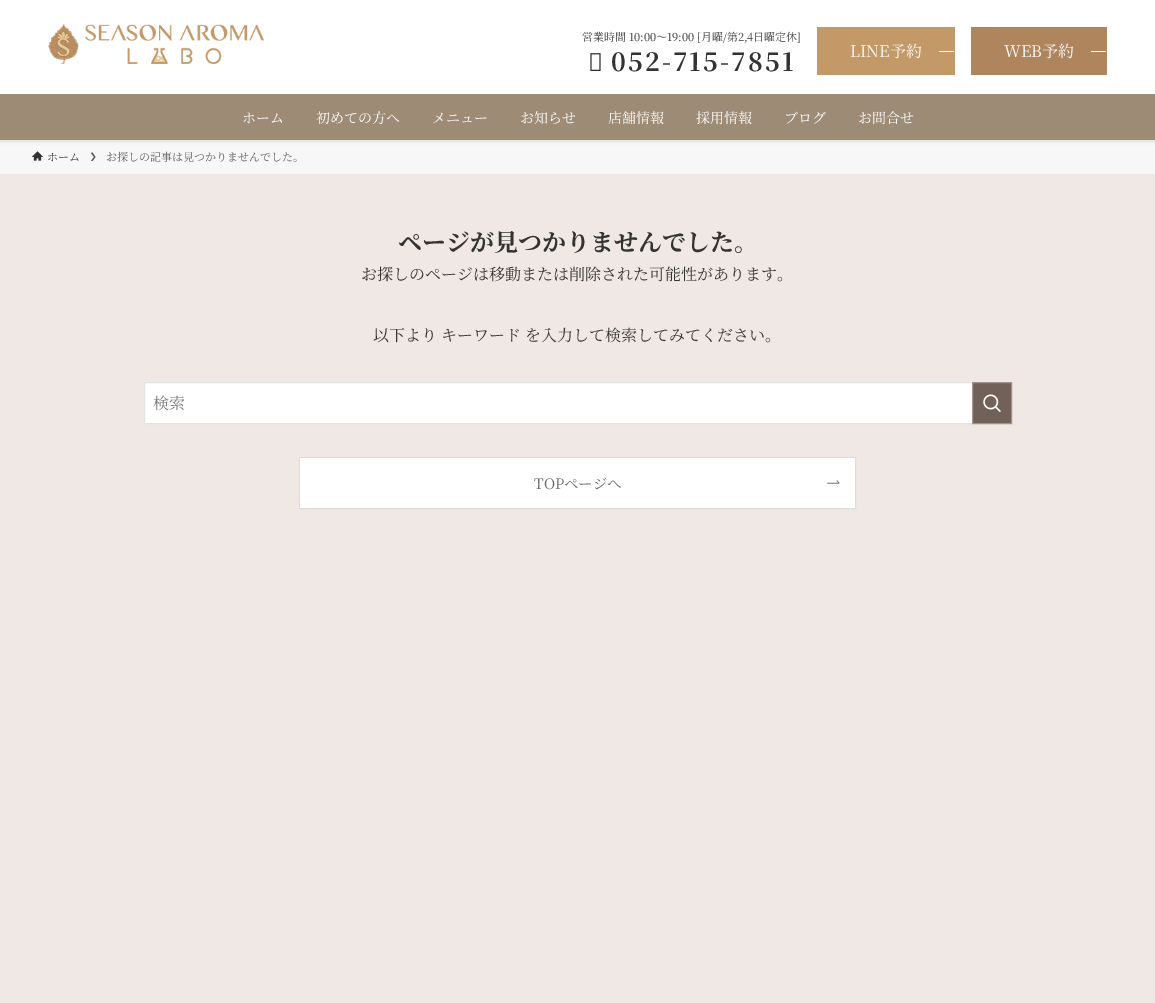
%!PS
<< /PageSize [1155 1003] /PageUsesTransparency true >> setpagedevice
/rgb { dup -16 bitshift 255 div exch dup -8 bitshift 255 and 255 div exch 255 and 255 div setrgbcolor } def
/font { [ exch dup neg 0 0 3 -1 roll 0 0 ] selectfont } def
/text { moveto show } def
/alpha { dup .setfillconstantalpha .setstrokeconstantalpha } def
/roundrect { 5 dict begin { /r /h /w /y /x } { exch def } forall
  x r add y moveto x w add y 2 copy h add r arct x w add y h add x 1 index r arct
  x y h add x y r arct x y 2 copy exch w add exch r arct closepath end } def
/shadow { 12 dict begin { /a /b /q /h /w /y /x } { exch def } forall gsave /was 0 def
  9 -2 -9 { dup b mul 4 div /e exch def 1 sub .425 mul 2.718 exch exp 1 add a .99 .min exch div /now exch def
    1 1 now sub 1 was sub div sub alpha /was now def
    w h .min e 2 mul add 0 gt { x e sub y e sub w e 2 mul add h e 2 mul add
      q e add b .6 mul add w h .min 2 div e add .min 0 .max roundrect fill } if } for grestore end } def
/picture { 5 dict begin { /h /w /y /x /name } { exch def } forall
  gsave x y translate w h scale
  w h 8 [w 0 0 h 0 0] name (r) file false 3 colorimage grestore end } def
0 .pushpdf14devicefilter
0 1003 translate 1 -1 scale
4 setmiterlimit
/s1 { /NotoSerifJP-Regular 11 font 16#333333 rgb } def
/s2 { /NotoSerifJP-Regular 16 font 16#FFFFFF rgb } def
/s3 { /NotoSerifJP-Regular 14 font 16#FFFFFF rgb } def
/s4 { /NotoSerifJP-Regular 11 font 16#5A5A5A rgb } def
/s5 { /NotoSerifJP-Bold 24 font 16#333333 rgb } def
/s6 { /NotoSerifJP-Regular 16 font 16#333333 rgb } def
/s7 { /NotoSerifJP-Regular 16 font 16#757575 rgb } def
/s8 { /NotoSerifJP-Regular 14.5 font 16#666666 rgb } def
16#F0E8E4 rgb
0 0 1155 1003 rectfill
16#F7F7F7 rgb
0 140 1155 34 rectfill
16#000000 rgb
0 1 1155 140 0 2 0.12 shadow
16#FFFFFF rgb
0 0 1155 94 rectfill
(pic1.raw) 48 24 216 40 picture
s1
(営業時間 10:00～19:00 [月曜/第2,4日曜定休]) 582 41 text
(pic2.raw) 590 53 11 18 picture
/NotoSerifJP-Bold 25 font
611 71 moveto 2 0 (052-715-7851) ashow
16#C29967 rgb
817 27 138 48 rectfill
s2
(LINE予約) 850 57 text
939 51 15 1 rectfill
16#AF855D rgb
971 27 136 48 rectfill
s2
(WEB予約) 1004 57 text
1091 51 15 1 rectfill
16#9D8B75 rgb
0 94 1155 46 rectfill
s3
(ホーム) 242 123 text
(初めての方へ) 316 123 text
(メニュー) 432 123 text
(お知らせ) 520 123 text
(店舗情報) 608 123 text
(採用情報) 696 123 text
(ブログ) 784 123 text
(お問合せ) 858 123 text
(pic3.raw) 32 151 11 10 picture
s1
(ホーム) 47 161 text
16#5A5A5A rgb
92.5 152.5 moveto 91 153 lineto 94 157 lineto 91 161 lineto 92.5 161 lineto 95.5 157 lineto closepath fill
(お探しの記事は見つかりませんでした。) 106 161 text
s5
(ページが見つかりませんでした。) 398 251 text
s6
(お探しのページは移動または削除された可能性があります。) 361 280 text
(以下より キーワード を入力して検索してみてください。) 373 341 text
16#FFFFFF rgb
145 383 827 40 rectfill
16#E3E3E3 rgb
144.5 382.5 867 41 rectstroke
s7
(検索) 153 409 text
16#726159 rgb
972.5 382.5 moveto 1011.5 382.5 lineto 1011.5 423.5 lineto 972.5 423.5 lineto closepath gsave fill grestore
16#9D9490 rgb
stroke
(pic4.raw) 983 394 18 18 picture
16#DCDCDC rgb
299.5 457.5 556 51 rectstroke
16#FFFFFF rgb
300 458 555 50 rectfill
s8
(TOPページへ) 534 489 text
(pic5.raw) 827 480 13 4 picture
.poppdf14devicefilter showpage
